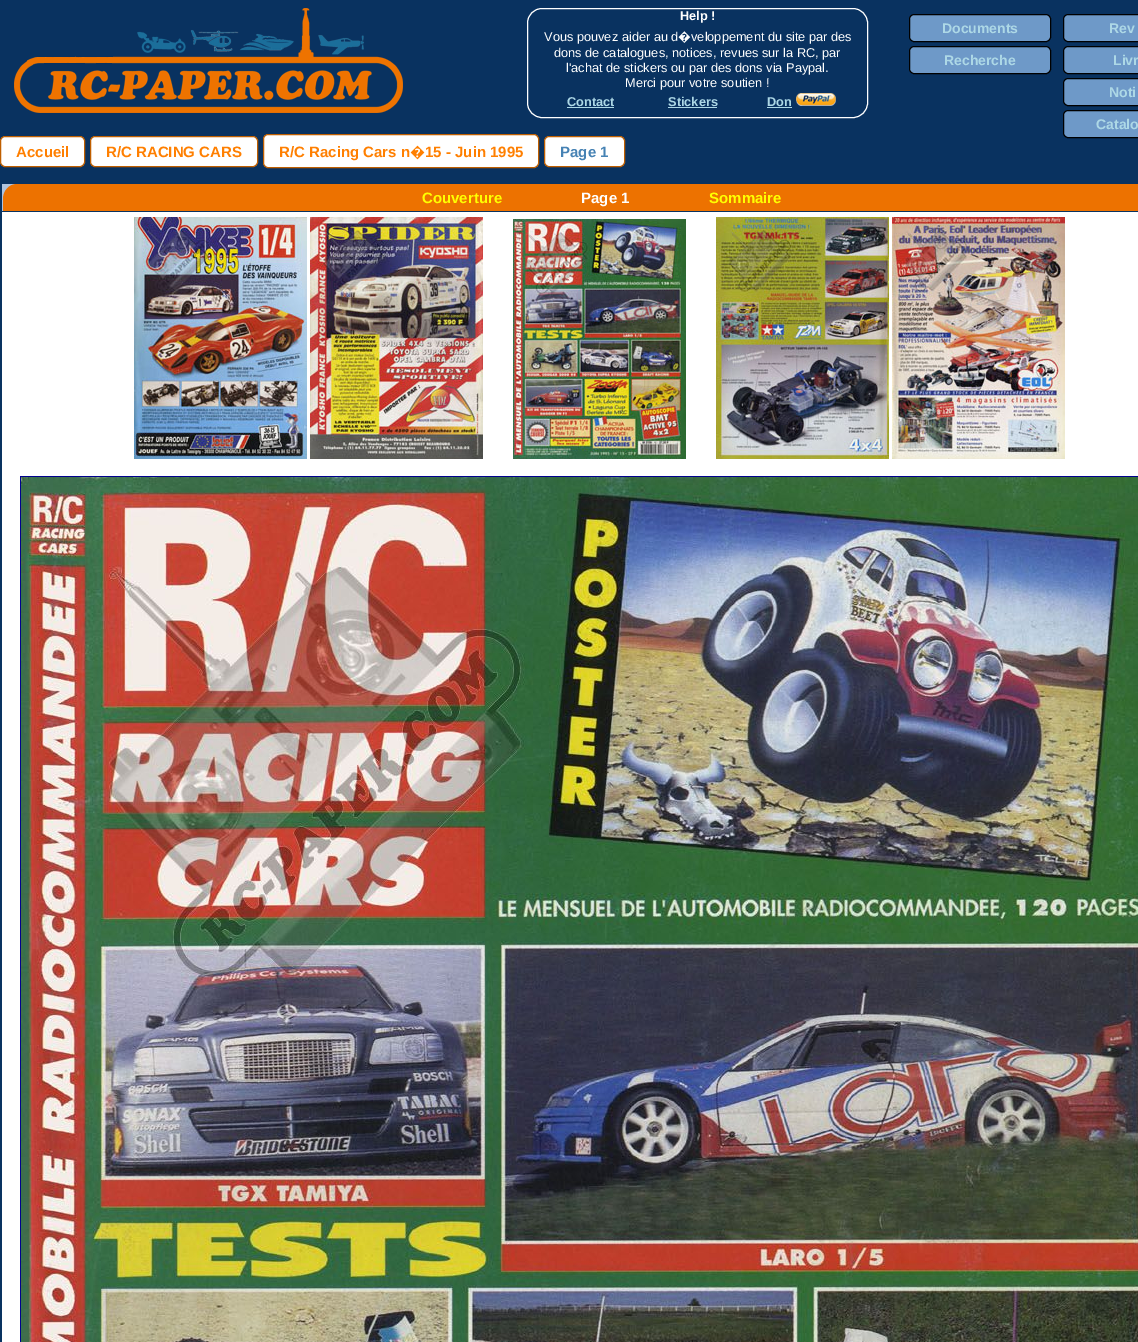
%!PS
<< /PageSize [1138 1342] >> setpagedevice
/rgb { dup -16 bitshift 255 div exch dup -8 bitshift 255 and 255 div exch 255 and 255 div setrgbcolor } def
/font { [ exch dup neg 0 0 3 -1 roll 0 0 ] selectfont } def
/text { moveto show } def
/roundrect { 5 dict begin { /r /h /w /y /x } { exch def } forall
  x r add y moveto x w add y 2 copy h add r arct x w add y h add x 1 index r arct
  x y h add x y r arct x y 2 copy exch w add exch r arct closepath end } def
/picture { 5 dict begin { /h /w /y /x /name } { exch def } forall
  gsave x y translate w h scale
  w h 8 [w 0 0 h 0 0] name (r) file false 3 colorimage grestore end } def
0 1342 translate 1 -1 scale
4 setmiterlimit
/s1 { /LiberationSans-Bold 12.8 font 16#FFFFFF rgb } def
/s2 { /LiberationSans-Regular 12.8 font 16#FFFFFF rgb } def
/s3 { /NotoSans-Regular 12.8 font 16#FFFFFF rgb } def
/s4 { /LiberationSans-Bold 12.8 font 16#ADD8E6 rgb } def
/s5 { /LiberationSans-Bold 14 font 16#ADD8E6 rgb } def
/s6 { /LiberationSans-Bold 15 font 16#FF7F00 rgb } def
/s7 { /NotoSans-Bold 15 font 16#FF7F00 rgb } def
/s8 { /LiberationSans-Bold 15 font 16#4682B4 rgb } def
/s9 { /LiberationSans-Bold 15 font 16#FFFF00 rgb } def
/s10 { /LiberationSans-Bold 15 font 16#FFFFFF rgb } def
16#093260 rgb
0 0 1138 1342 rectfill
(pic1.raw) 14 8 389 105 picture
16#FFFFFF rgb
527.5 8.5 340 109 14.5 roundrect stroke
s1
(Help !) 680 20 text
s2
(Vous pouvez aider au d) 544 41 text
s3
(�) 678 41 text
s2
(veloppement du site par des) 691 41 text
(dons de catalogues, notices, revues sur la RC, par) 554 57 text
(l'achat de stickers ou par des dons via Paypal.) 566 72 text
(Merci pour votre soutien !) 625 87 text
s4
(Contact) 567 106 text
567 107 47 1 rectfill
(Stickers) 668 106 text
668 107 49 1 rectfill
(Don) 767 106 text
767 107 25 1 rectfill
(pic2.raw) 796 93 40 13 picture
16#6E99C8 rgb
909.5 14.5 141 27 4.5 roundrect gsave fill grestore
16#000000 rgb
stroke
s5
(Documents) 942 33 text
16#6E99C8 rgb
909.5 46.5 141 27 4.5 roundrect gsave fill grestore
16#000000 rgb
stroke
s5
(Recherche) 944 65 text
16#6E99C8 rgb
1063.5 14.5 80 27 4.5 roundrect gsave fill grestore
16#000000 rgb
stroke
s5
(Rev) 1109 33 text
16#6E99C8 rgb
1063.5 46.5 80 27 4.5 roundrect gsave fill grestore
16#000000 rgb
stroke
s5
(Livr) 1113 65 text
16#6E99C8 rgb
1063.5 78.5 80 27 4.5 roundrect gsave fill grestore
16#000000 rgb
stroke
s5
(Noti) 1109 97 text
16#6E99C8 rgb
1063.5 110.5 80 27 4.5 roundrect gsave fill grestore
16#000000 rgb
stroke
s5
(Catalo) 1096 129 text
16#FFFFFF rgb
0.5 136.5 84 30 4.5 roundrect gsave fill grestore
16#BF5F00 rgb
stroke
s6
(Accueil) 16 157 text
16#FFFFFF rgb
90.5 136.5 167 30 4.5 roundrect gsave fill grestore
16#BF5F00 rgb
stroke
s6
(R/C RACING CARS) 106 157 text
16#FFFFFF rgb
263.5 134.5 275 33 4.5 roundrect gsave fill grestore
16#BF5F00 rgb
stroke
s6
(R/C Racing Cars n) 279 157 text
s7
(�) 410 157 text
s6
(15 - Juin 1995) 425 157 text
16#FFFFFF rgb
544.5 136.5 80 30 4.5 roundrect gsave fill grestore
16#BF5F00 rgb
stroke
s8
(Page 1) 560 157 text
16#B0C4DE rgb
2 184 15 27 rectfill
16#ED7200 rgb
17 184 moveto 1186 184 lineto 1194 184 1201 191 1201 199 curveto 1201 211 lineto 3 211 lineto 3 199 lineto 3 191 9 184 17 184 curveto closepath fill
s9
(Couverture) 422 203 text
s10
(Page 1) 581 203 text
s9
(Sommaire) 709 203 text
16#FFFFFF rgb
2 212 1136 1130 rectfill
(pic3.raw) 134 217 173 242 picture
(pic4.raw) 310 217 173 242 picture
(pic5.raw) 513 219 173 240 picture
(pic6.raw) 716 217 173 242 picture
(pic7.raw) 892 217 173 242 picture
16#00008F rgb
20.5 476.5 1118 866 rectstroke
(pic8.raw) 21 477 1117 865 picture
showpage
